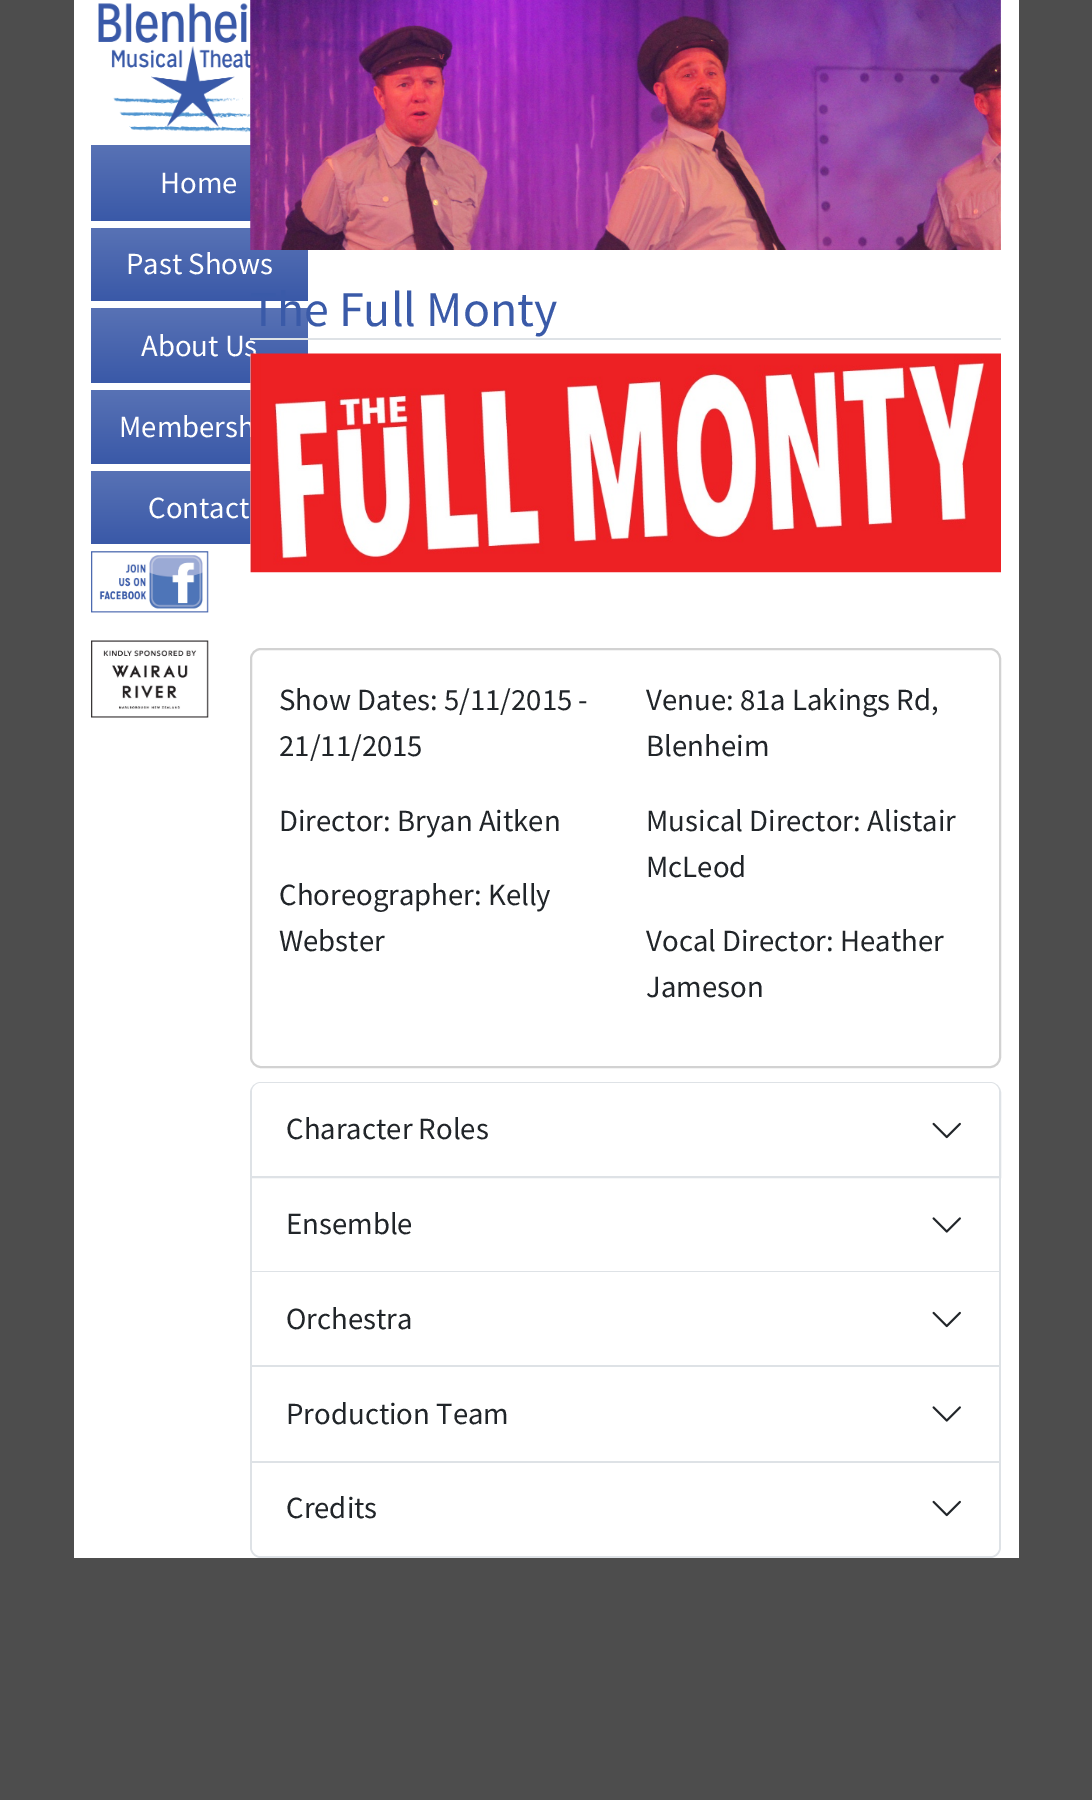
%!PS
<< /PageSize [1092 1800] >> setpagedevice
/rgb { dup -16 bitshift 255 div exch dup -8 bitshift 255 and 255 div exch 255 and 255 div setrgbcolor } def
/font { [ exch dup neg 0 0 3 -1 roll 0 0 ] selectfont } def
/text { moveto show } def
/roundrect { 5 dict begin { /r /h /w /y /x } { exch def } forall
  x r add y moveto x w add y 2 copy h add r arct x w add y h add x 1 index r arct
  x y h add x y r arct x y 2 copy exch w add exch r arct closepath end } def
/picture { 5 dict begin { /h /w /y /x /name } { exch def } forall
  gsave x y translate w h scale
  w h 8 [w 0 0 h 0 0] name (r) file false 3 colorimage grestore end } def
0 1800 translate 1 -1 scale
4 setmiterlimit
/s1 { /SourceSansPro-Regular 30.75 font 16#FFFFFF rgb } def
/s2 { /SourceSansPro-Regular 50 font 16#3A5AA8 rgb } def
/s3 { /SourceSansPro-Regular 30.75 font 16#212529 rgb } def
16#4D4D4D rgb
0 0 1092 1800 rectfill
16#FFFFFF rgb
74 0 945 1558 rectfill
(pic1.raw) 98 3 153 130 picture
gsave 91 145 moveto 251 145 lineto 251 221 lineto 91 221 lineto closepath clip newpath
<< /ShadingType 2 /ColorSpace /DeviceRGB /Coords [200 145 200 221] /Extend [true true] /Function << /FunctionType 2 /Domain [0 1] /C0 [0.345 0.447 0.71] /C1 [0.227 0.349 0.659] /N 1 >> >> shfill grestore
s1
(Home) 160 193 text
gsave 91 228 moveto 308 228 lineto 308 301 lineto 91 301 lineto closepath clip newpath
<< /ShadingType 2 /ColorSpace /DeviceRGB /Coords [200 228 200 301] /Extend [true true] /Function << /FunctionType 2 /Domain [0 1] /C0 [0.345 0.447 0.71] /C1 [0.227 0.349 0.659] /N 1 >> >> shfill grestore
(Past Shows) 126 274 text
gsave 91 308 moveto 308 308 lineto 308 383 lineto 91 383 lineto closepath clip newpath
<< /ShadingType 2 /ColorSpace /DeviceRGB /Coords [200 308 200 383] /Extend [true true] /Function << /FunctionType 2 /Domain [0 1] /C0 [0.345 0.447 0.71] /C1 [0.227 0.349 0.659] /N 1 >> >> shfill grestore
(About Us) 141 356 text
gsave 91 390 moveto 251 390 lineto 251 464 lineto 91 464 lineto closepath clip newpath
<< /ShadingType 2 /ColorSpace /DeviceRGB /Coords [200 390 200 464] /Extend [true true] /Function << /FunctionType 2 /Domain [0 1] /C0 [0.345 0.447 0.71] /C1 [0.227 0.349 0.659] /N 1 >> >> shfill grestore
(Membersh) 119 437 text
gsave 91 471 moveto 251 471 lineto 251 544 lineto 91 544 lineto closepath clip newpath
<< /ShadingType 2 /ColorSpace /DeviceRGB /Coords [200 471 200 544] /Extend [true true] /Function << /FunctionType 2 /Domain [0 1] /C0 [0.345 0.447 0.71] /C1 [0.227 0.349 0.659] /N 1 >> >> shfill grestore
(Contact) 148 518 text
(pic2.raw) 91 551 118 62 picture
(pic3.raw) 91 640 118 78 picture
(pic4.raw) 250 0 751 250 picture
16#DEE2E6 rgb
250 338 751 2 rectfill
s2
(The Full Monty) 250 326 text
(pic5.raw) 250 353 751 220 picture
16#D2D2D2 rgb
2 setlinewidth
251 649 749 418 10 roundrect stroke
s3
(Show Dates: 5/11/2015 -) 279 710 text
(21/11/2015) 279 756 text
(Director: Bryan Aitken) 279 831 text
(Choreographer: Kelly) 279 905 text
(Webster) 279 951 text
(Venue: 81a Lakings Rd,) 646 710 text
(Blenheim) 646 756 text
(Musical Director: Alistair) 646 831 text
(McLeod) 646 877 text
(Vocal Director: Heather) 646 951 text
(Jameson) 646 997 text
16#DEE2E6 rgb
261 1083 moveto 990 1083 lineto 995.5 1083 1000 1087.5 1000 1093 curveto 1000 1177 lineto 251 1177 lineto 251 1093 lineto 251 1087.5 255.5 1083 261 1083 curveto closepath stroke
16#FFFFFF rgb
261 1083 moveto 990 1083 lineto 995 1083 999 1087 999 1092 curveto 999 1176 lineto 252 1176 lineto 252 1092 lineto 252 1087 256 1083 261 1083 curveto closepath fill
s3
(Character Roles) 286 1139 text
(pic6.raw) 932 1122 29 17 picture
16#DEE2E6 rgb
999 1178 2 285 rectfill
250 1271 751 1 rectfill
250 1178 2 94 rectfill
s3
(Ensemble) 286 1234 text
(pic7.raw) 932 1217 29 16 picture
16#DEE2E6 rgb
250 1365 751 2 rectfill
250 1272 2 95 rectfill
s3
(Orchestra) 286 1329 text
(pic6.raw) 932 1311 29 17 picture
16#DEE2E6 rgb
250 1461 751 2 rectfill
250 1367 2 96 rectfill
s3
(Production Team) 286 1424 text
(pic7.raw) 932 1406 29 16 picture
16#DEE2E6 rgb
250 1463 moveto 1001 1463 lineto 1001 1547 lineto 1001 1553 996 1558 990 1558 curveto 261 1558 lineto 255 1558 250 1553 250 1547 curveto closepath 252 1463 moveto 999 1463 lineto 999 1547 lineto 999 1552 995 1556 990 1556 curveto 261 1556 lineto 256 1556 252 1552 252 1547 curveto closepath eofill
16#FFFFFF rgb
252 1463 moveto 999 1463 lineto 999 1547 lineto 999 1552 995 1556 990 1556 curveto 261 1556 lineto 256 1556 252 1552 252 1547 curveto closepath fill
s3
(Credits) 286 1518 text
(pic6.raw) 932 1500 29 17 picture
showpage
